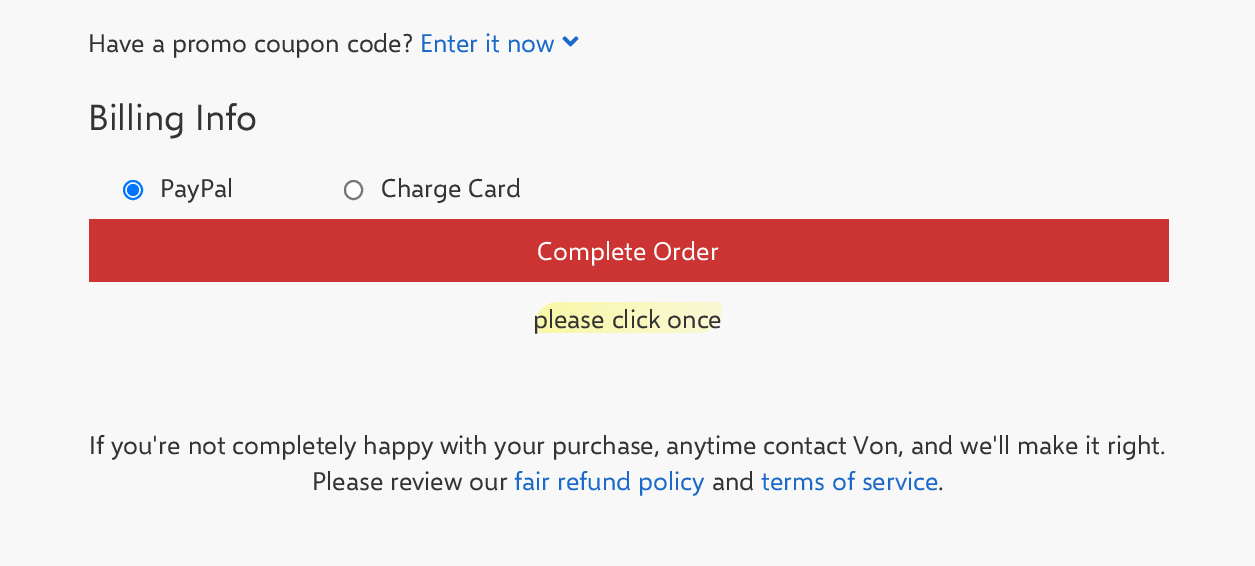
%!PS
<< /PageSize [1255 566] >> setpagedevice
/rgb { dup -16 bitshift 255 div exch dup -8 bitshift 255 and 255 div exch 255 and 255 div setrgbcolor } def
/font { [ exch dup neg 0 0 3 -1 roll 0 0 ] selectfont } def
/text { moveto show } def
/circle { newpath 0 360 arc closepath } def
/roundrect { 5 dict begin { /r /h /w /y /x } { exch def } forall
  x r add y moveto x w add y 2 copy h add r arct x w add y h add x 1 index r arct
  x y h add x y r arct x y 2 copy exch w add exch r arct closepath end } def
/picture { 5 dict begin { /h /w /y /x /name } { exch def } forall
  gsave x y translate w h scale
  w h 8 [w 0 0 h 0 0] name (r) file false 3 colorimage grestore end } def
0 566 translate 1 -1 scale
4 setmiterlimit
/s1 { /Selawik-Regular 25.5 font 16#333333 rgb } def
/s2 { /Selawik-Regular 25.5 font 16#1B6AC9 rgb } def
/s3 { /Selawik-Regular 36 font 16#333333 rgb } def
/s4 { /Selawik-Regular 25.5 font 16#FFFFFF rgb } def
16#F8F8F8 rgb
0 0 1255 566 rectfill
s1
(Have a promo coupon code?) 88 52 text
s2
(Enter it now) 420 52 text
(pic1.raw) 562 36 17 11 picture
s3
(Billing Info) 88 130 text
16#FFFFFF rgb
133 190 9 circle gsave fill grestore
16#0075FF rgb
2 setlinewidth
stroke
133 190 6 circle fill
s1
(PayPal) 160 197 text
16#FFFFFF rgb
345 181 17 18 8.5 roundrect gsave fill grestore
16#767676 rgb
stroke
s1
(Charge Card) 381 197 text
16#CC3333 rgb
89 219 1080 63 rectfill
s4
(Complete Order) 537 260 text
gsave 560 302 moveto 722 302 lineto 722 307 lineto 722 321.5 710.5 333 696 333 curveto 534 333 lineto 534 328 lineto 534 313.5 545.5 302 560 302 curveto closepath clip newpath
<< /ShadingType 2 /ColorSpace /DeviceRGB /Coords [721 301 534 334] /Extend [true true] /Function << /FunctionType 3 /Domain [0 1] /Functions [<< /FunctionType 2 /Domain [0 1] /C0 [0.976 0.973 0.839] /C1 [0.976 0.969 0.659] /N 1 >> << /FunctionType 2 /Domain [0 1] /C0 [0.976 0.969 0.659] /C1 [0.973 0.973 0.929] /N 1 >>] /Bounds [0.95] /Encode [0 1 0 1] >> >> shfill grestore
s1
(please click once) 533 328 text
(If you're not completely happy with your purchase, anytime contact Von, and we'll make it right.) 89 454 text
(Please review our) 312 490 text
s2
(fair refund policy) 514 490 text
s1
(and) 712 490 text
s2
(terms of service) 761 490 text
s1
(.) 938 490 text
showpage
